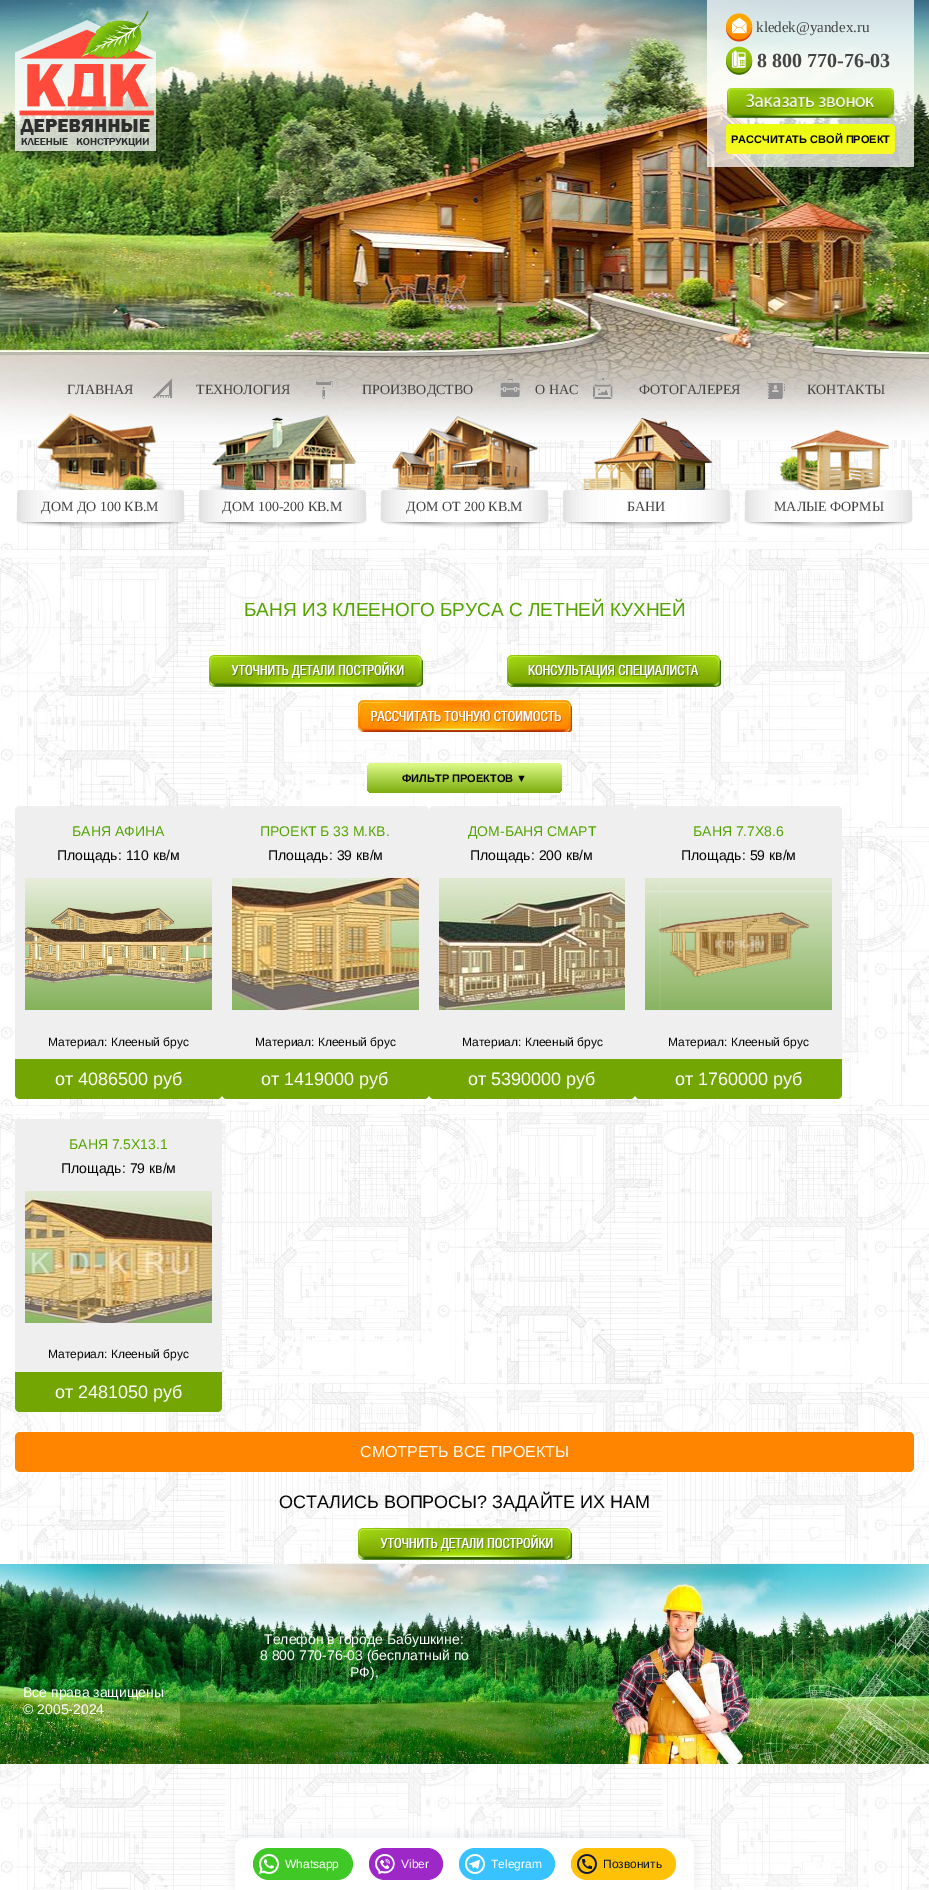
%!PS
<< /PageSize [929 1890] /PageUsesTransparency true >> setpagedevice
/rgb { dup -16 bitshift 255 div exch dup -8 bitshift 255 and 255 div exch 255 and 255 div setrgbcolor } def
/font { [ exch dup neg 0 0 3 -1 roll 0 0 ] selectfont } def
/text { moveto show } def
/alpha { dup .setfillconstantalpha .setstrokeconstantalpha } def
/roundrect { 5 dict begin { /r /h /w /y /x } { exch def } forall
  x r add y moveto x w add y 2 copy h add r arct x w add y h add x 1 index r arct
  x y h add x y r arct x y 2 copy exch w add exch r arct closepath end } def
/shadow { 12 dict begin { /a /b /q /h /w /y /x } { exch def } forall gsave /was 0 def
  9 -2 -9 { dup b mul 4 div /e exch def 1 sub .425 mul 2.718 exch exp 1 add a .99 .min exch div /now exch def
    1 1 now sub 1 was sub div sub alpha /was now def
    w h .min e 2 mul add 0 gt { x e sub y e sub w e 2 mul add h e 2 mul add
      q e add b .6 mul add w h .min 2 div e add .min 0 .max roundrect fill } if } for grestore end } def
/picture { 5 dict begin { /h /w /y /x /name } { exch def } forall
  gsave x y translate w h scale
  w h 8 [w 0 0 h 0 0] name (r) file false 3 colorimage grestore end } def
0 .pushpdf14devicefilter
0 1890 translate 1 -1 scale
4 setmiterlimit
/s1 { /LiberationSerif-Regular 15 font 16#444444 rgb } def
/s2 { /LiberationSerif-Bold 20 font 16#444444 rgb } def
/s3 { /LiberationSans-Bold 11 font 16#050505 rgb } def
/s4 { /LiberationSerif-Regular 14 font 16#444444 rgb } def
/s5 { /LiberationSans-Regular 19 font 16#54A300 rgb } def
/s6 { /LiberationSans-Regular 14 font 16#54A300 rgb } def
/s7 { /LiberationSans-Regular 14 font 16#050505 rgb } def
/s8 { /LiberationSans-Regular 12 font 16#050505 rgb } def
/s9 { /LiberationSans-Regular 18 font 16#FFFFFF rgb } def
/s10 { /LiberationSans-Regular 16 font 16#FFFFFF rgb } def
/s11 { /LiberationSans-Regular 18 font 16#050505 rgb } def
/s12 { /LiberationSans-Regular 14 font 16#FFFFFF rgb } def
/s13 { /LiberationSans-Regular 12 font 16#FFFFFF rgb } def
/s14 { /LiberationSans-Regular 12 font 16#0E1935 rgb } def
16#FFFFFF rgb
0 0 929 1890 rectfill
(pic1.raw) 0 440 929 1450 picture
(pic2.raw) 0 0 929 440 picture
(pic3.raw) 15 10 141 141 picture
0.75 alpha
707 0 207 167 rectfill
1 alpha
(pic4.raw) 726 13 27 29 picture
s1
(kledek@yandex.ru) 756 32 text
(pic5.raw) 726 46 27 29 picture
s2
(8 800 770-76-03) 757 67 text
(pic6.raw) 727 88 168 30 picture
gsave 726 124 169 30 5 roundrect clip newpath
<< /ShadingType 2 /ColorSpace /DeviceRGB /Coords [726 124 726 154] /Extend [true true] /Function << /FunctionType 3 /Domain [0 1] /Functions [<< /FunctionType 2 /Domain [0 1] /C0 [0.918 0.996 0.051] /C1 [0.918 0.996 0.051] /N 1 >> << /FunctionType 2 /Domain [0 1] /C0 [0.918 0.996 0.051] /C1 [0.98 0.973 0.149] /N 1 >>] /Bounds [0.05] /Encode [0 1 0 1] >> >> shfill grestore
s3
(РАССЧИТАТЬ СВОЙ ПРОЕКТ) 731 143 text
s4
(ГЛАВНАЯ) 67 394 text
(pic7.raw) 152 378 20 20 picture
(ТЕХНОЛОГИЯ) 196 394 text
(pic8.raw) 316 380 17 19 picture
(ПРОИЗВОДСТВО) 362 394 text
(pic9.raw) 500 379 20 18 picture
(О НАС) 535 394 text
(pic10.raw) 593 378 20 21 picture
(ФОТОГАЛЕРЕЯ) 639 394 text
(pic11.raw) 767 380 18 19 picture
(КОНТАКТЫ) 807 394 text
(pic12.raw) 37 413 130 77 picture
(pic13.raw) 16 490 169 39 picture
(ДОМ ДО 100 КВ.М) 41 511 text
(pic14.raw) 208 414 151 76 picture
(pic15.raw) 198 490 169 39 picture
(ДОМ 100-200 КВ.М) 222 511 text
(pic16.raw) 388 416 152 74 picture
(pic17.raw) 380 490 169 39 picture
(ДОМ ОТ 200 КВ.М) 406 511 text
(pic18.raw) 582 418 134 72 picture
(pic19.raw) 562 490 169 39 picture
(БАНИ) 627 511 text
(pic20.raw) 779 429 110 61 picture
(pic21.raw) 744 490 169 39 picture
(МАЛЫЕ ФОРМЫ) 774 511 text
s5
(БАНЯ ИЗ КЛЕЕНОГО БРУСА С ЛЕТНЕЙ КУХНЕЙ) 244 616 text
(pic22.raw) 209 655 214 32 picture
(pic23.raw) 507 655 214 32 picture
(pic24.raw) 358 700 214 32 picture
gsave 367 763 195 30 5 roundrect clip newpath
<< /ShadingType 2 /ColorSpace /DeviceRGB /Coords [367 763 367 793] /Extend [true true] /Function << /FunctionType 3 /Domain [0 1] /Functions [<< /FunctionType 2 /Domain [0 1] /C0 [0.855 0.973 0.514] /C1 [0.855 0.973 0.514] /N 1 >> << /FunctionType 2 /Domain [0 1] /C0 [0.855 0.973 0.514] /C1 [0.486 0.678 0.051] /N 1 >>] /Bounds [0.05] /Encode [0 1 0 1] >> >> shfill grestore
s3
(ФИЛЬТР ПРОЕКТОВ ▼) 402 782 text
16#EFEFEF rgb
15 806 207 293 5 roundrect fill
s6
(БАНЯ АФИНА) 72 836 text
s7
(Площадь: 110 кв/м) 57 860 text
(pic25.raw) 25 878 187 132 picture
s8
(Материал: Клееный брус) 48 1046 text
16#73A603 rgb
15 1059 moveto 222 1059 lineto 222 1094 lineto 222 1097 220 1099 217 1099 curveto 20 1099 lineto 17 1099 15 1097 15 1094 curveto closepath fill
s9
(от 4086500 руб) 55 1085 text
16#EFEFEF rgb
222 806 207 293 5 roundrect fill
s6
(ПРОЕКТ Б 33 М.КВ.) 260 836 text
s7
(Площадь: 39 кв/м) 268 860 text
(pic26.raw) 232 878 187 132 picture
s8
(Материал: Клееный брус) 255 1046 text
16#73A603 rgb
222 1059 moveto 429 1059 lineto 429 1094 lineto 429 1097 427 1099 424 1099 curveto 227 1099 lineto 224 1099 222 1097 222 1094 curveto closepath fill
s9
(от 1419000 руб) 261 1085 text
16#EFEFEF rgb
429 806 206 293 5 roundrect fill
s6
(ДОМ-БАНЯ СМАРТ) 468 836 text
s7
(Площадь: 200 кв/м) 470 860 text
(pic27.raw) 439 878 186 132 picture
s8
(Материал: Клееный брус) 462 1046 text
16#73A603 rgb
429 1059 moveto 635 1059 lineto 635 1094 lineto 635 1097 633 1099 630 1099 curveto 434 1099 lineto 431 1099 429 1097 429 1094 curveto closepath fill
s9
(от 5390000 руб) 468 1085 text
16#EFEFEF rgb
635 806 207 293 5 roundrect fill
s6
(БАНЯ 7.7Х8.6) 693 836 text
s7
(Площадь: 59 кв/м) 681 860 text
(pic28.raw) 645 878 187 132 picture
s8
(Материал: Клееный брус) 668 1046 text
16#73A603 rgb
635 1059 moveto 842 1059 lineto 842 1094 lineto 842 1097 840 1099 837 1099 curveto 640 1099 lineto 637 1099 635 1097 635 1094 curveto closepath fill
s9
(от 1760000 руб) 675 1085 text
16#EFEFEF rgb
15 1119 207 293 5 roundrect fill
s6
(БАНЯ 7.5Х13.1) 69 1149 text
s7
(Площадь: 79 кв/м) 61 1173 text
(pic29.raw) 25 1191 187 132 picture
s8
(Материал: Клееный брус) 48 1358 text
16#73A603 rgb
15 1372 moveto 222 1372 lineto 222 1407 lineto 222 1410 220 1412 217 1412 curveto 20 1412 lineto 17 1412 15 1410 15 1407 curveto closepath fill
s9
(от 2481050 руб) 55 1398 text
16#FF8400 rgb
15 1432 899 40 5 roundrect fill
s10
(СМОТРЕТЬ ВСЕ ПРОЕКТЫ) 360 1457 text
s11
(ОСТАЛИСЬ ВОПРОСЫ? ЗАДАЙТЕ ИХ НАМ) 279 1508 text
(pic30.raw) 358 1528 214 32 picture
(pic31.raw) 0 1564 929 200 picture
s12
(Телефон в городе Бабушкине:) 264 1644 text
(8 800 770-76-03 \(бесплатный по) 260 1660 text
(РФ\),) 350 1677 text
(Все права защищены) 23 1697 text
(© 2005-2024) 23 1714 text
16#042D3E rgb
231 1834 467 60 14 5 0.05 shadow
16#FFFFFF rgb
245 1838 moveto 684 1838 lineto 689.5 1838 694 1842.5 694 1848 curveto 694 1890 lineto 235 1890 lineto 235 1848 lineto 235 1842.5 239.5 1838 245 1838 curveto closepath fill
16#40C827 rgb
253 1848 100 32 16 roundrect fill
(pic32.raw) 259 1854 20 20 picture
s13
(Whatsapp) 285 1868 text
16#9E27C8 rgb
369 1848 74 32 16 roundrect fill
(pic33.raw) 375 1854 20 20 picture
s13
(Viber) 401 1868 text
16#38C2FF rgb
459 1848 96 32 16 roundrect fill
(pic34.raw) 465 1854 20 20 picture
s13
(Telegram) 491 1868 text
16#FFC107 rgb
571 1848 105 32 16 roundrect fill
(pic35.raw) 577 1854 20 20 picture
s14
(Позвонить) 603 1868 text
.poppdf14devicefilter showpage
